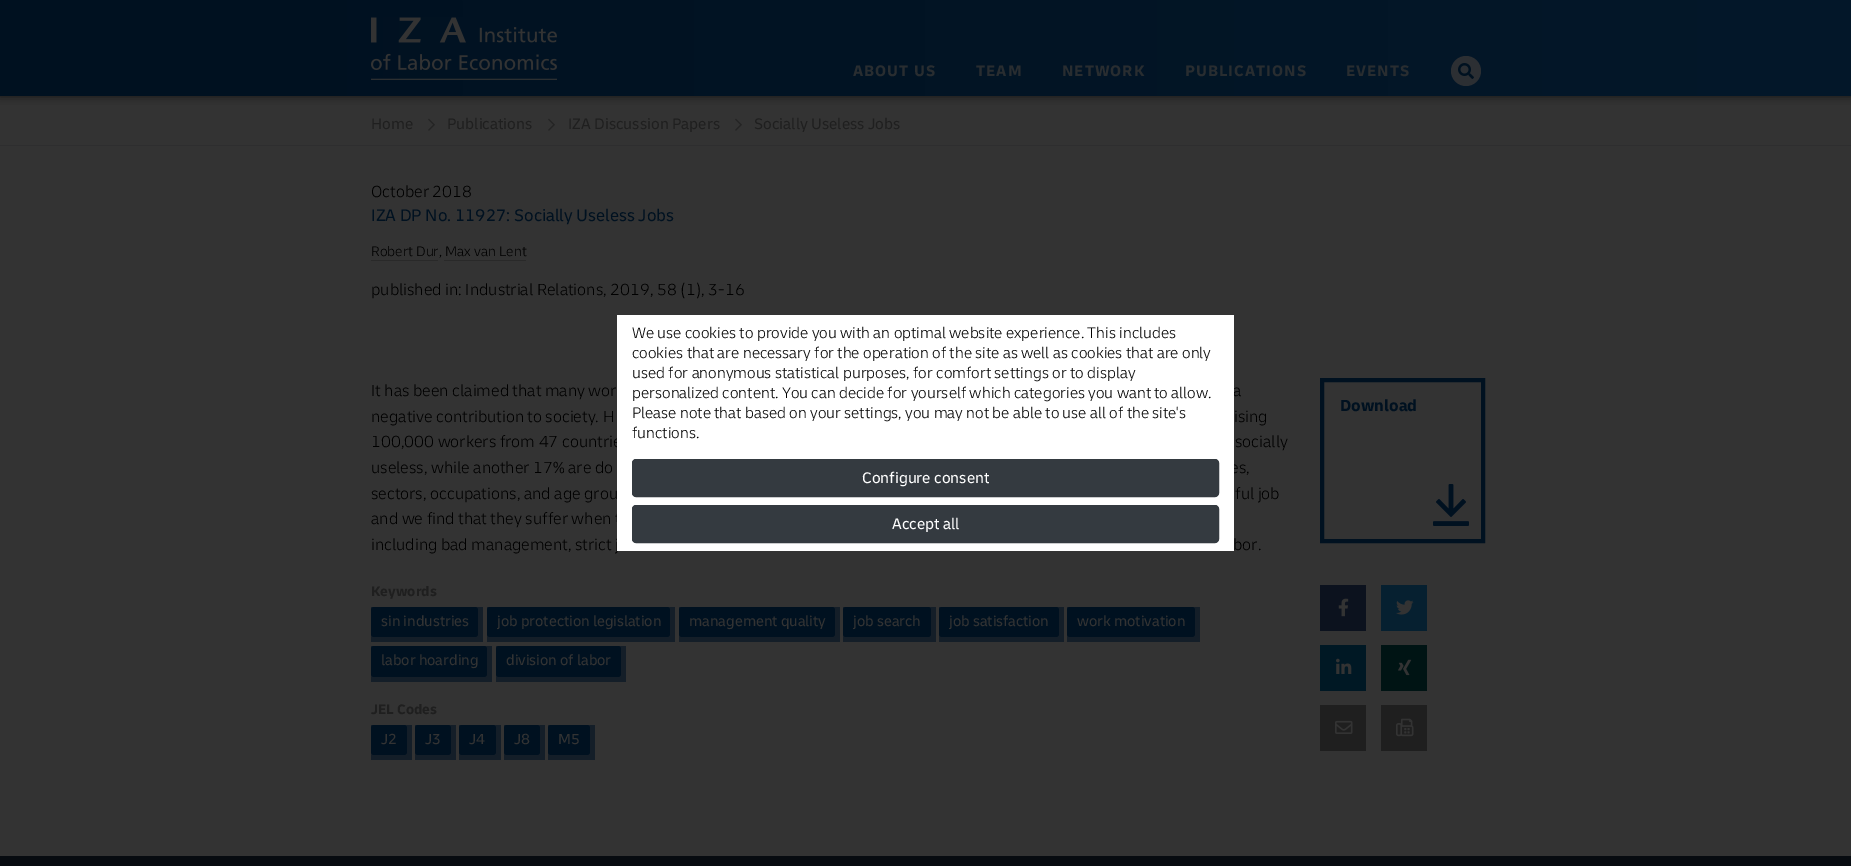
%!PS
<< /PageSize [1851 866] /PageUsesTransparency true >> setpagedevice
/rgb { dup -16 bitshift 255 div exch dup -8 bitshift 255 and 255 div exch 255 and 255 div setrgbcolor } def
/font { [ exch dup neg 0 0 3 -1 roll 0 0 ] selectfont } def
/text { moveto show } def
/alpha { dup .setfillconstantalpha .setstrokeconstantalpha } def
/circle { newpath 0 360 arc closepath } def
/roundrect { 5 dict begin { /r /h /w /y /x } { exch def } forall
  x r add y moveto x w add y 2 copy h add r arct x w add y h add x 1 index r arct
  x y h add x y r arct x y 2 copy exch w add exch r arct closepath end } def
/shadow { 12 dict begin { /a /b /q /h /w /y /x } { exch def } forall gsave /was 0 def
  9 -2 -9 { dup b mul 4 div /e exch def 1 sub .425 mul 2.718 exch exp 1 add a .99 .min exch div /now exch def
    1 1 now sub 1 was sub div sub alpha /was now def
    w h .min e 2 mul add 0 gt { x e sub y e sub w e 2 mul add h e 2 mul add
      q e add b .6 mul add w h .min 2 div e add .min 0 .max roundrect fill } if } for grestore end } def
/picture { 5 dict begin { /h /w /y /x /name } { exch def } forall
  gsave x y translate w h scale
  w h 8 [w 0 0 h 0 0] name (r) file false 3 colorimage grestore end } def
0 .pushpdf14devicefilter
0 866 translate 1 -1 scale
4 setmiterlimit
/s1 { /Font-Regular 16 font 16#1F1F1F rgb } def
/s2 { /Font-Light 16.8 font 16#000000 rgb } def
/s3 { /Font-Regular 17.5 font 16#001120 rgb } def
/s4 { /Font-Light 14.4 font 16#000000 rgb } def
/s5 { /Font-Bold 16.8 font 16#001120 rgb } def
/s6 { /Font-Bold 14.4 font 16#1F1F1F rgb } def
/s7 { /Font-Regular 15.25 font 16#333333 rgb } def
/s8 { /Font-Light 16 font 16#000000 rgb } def
/s9 { /Font-Regular 16 font 16#FFFFFF rgb } def
16#333333 rgb
0 0 1851 866 rectfill
16#000000 rgb
0 -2 1851 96 0 5 1 shadow
gsave 0 0 moveto 1851 0 lineto 1851 96 lineto 0 96 lineto closepath clip newpath
<< /ShadingType 2 /ColorSpace /DeviceRGB /Coords [0 48 1851 48] /Extend [true true] /Function << /FunctionType 3 /Domain [0 1] /Functions [<< /FunctionType 2 /Domain [0 1] /C0 [0 0.067 0.125] /C1 [0 0.067 0.125] /N 1 >> << /FunctionType 2 /Domain [0 1] /C0 [0 0.067 0.125] /C1 [0.016 0.094 0.165] /N 1 >>] /Bounds [0.1] /Encode [0 1 0 1] >> >> shfill grestore
(pic1.raw) 371 17 186 63 picture
/Font-Bold 16 font
16#292D30 rgb
853 76 moveto 1 0 (ABOUT US) ashow
976 76 moveto 1 0 (TEAM) ashow
1062 76 moveto 1 0 (NETWORK) ashow
1185 76 moveto 1 0 (PUBLICATIONS) ashow
1346 76 moveto 1 0 (EVENTS) ashow
16#2C2F33 rgb
1466 71 15 circle fill
(pic2.raw) 1458 63 16 16 picture
s1
(Home) 371 129 text
(pic3.raw) 428 118 7 13 picture
(Publications) 447 129 text
(pic3.raw) 548 118 7 13 picture
(IZA Discussion Papers) 568 129 text
(pic3.raw) 735 118 7 13 picture
(Socially Useless Jobs) 754 129 text
16#2E2E2F rgb
0 145 1851 1 rectfill
s2
(October 2018) 371 197 text
s3
(IZA DP No. 11927: Socially Useless Jobs) 371 221 text
s4
(Robert Dur, Max van Lent) 371 256 text
16#292929 rgb
371 260 67 1 rectfill
444 260 82 1 rectfill
s2
(published in: Industrial Relations, 2019, 58 \(1\), 3-16) 371 295 text
(It has been claimed that many wor) 371 396 text
(a) 1233 396 text
(negative contribution to society. H) 371 422 text
(ising) 1234 422 text
(100,000 workers from 47 countrie) 371 447 text
(socially) 1235 447 text
(useless, while another 17% are do) 371 473 text
(es,) 1230 473 text
(sectors, occupations, and age grou) 371 499 text
(ful job) 1235 499 text
(and we find that they suffer when t) 371 524 text
(including bad management, strict j) 371 550 text
(bor.) 1233 550 text
16#001120 rgb
4 setlinewidth
1322 380 161 161 rectstroke
s5
(Download) 1340 411 text
(pic4.raw) 1433 484 36 42 picture
s6
(Keywords) 371 596 text
16#141E28 rgb
371 607 112 35 rectfill
16#001120 rgb
371 607 107 30 3 roundrect fill
s7
(sin industries) 381 626 text
16#141E28 rgb
487 607 188 35 rectfill
16#001120 rgb
487 607 183 30 3 roundrect fill
s7
(job protection legislation) 497 626 text
16#141E28 rgb
679 607 161 35 rectfill
16#001120 rgb
679 607 156 30 3 roundrect fill
s7
(management quality) 689 626 text
16#141E28 rgb
843 607 93 35 rectfill
16#001120 rgb
843 607 88 30 3 roundrect fill
s7
(job search) 853 626 text
16#141E28 rgb
939 607 125 35 rectfill
16#001120 rgb
939 607 120 30 3 roundrect fill
s7
(job satisfaction) 949 626 text
16#141E28 rgb
1067 607 133 35 rectfill
16#001120 rgb
1067 607 128 30 3 roundrect fill
s7
(work motivation) 1077 626 text
16#141E28 rgb
371 646 121 36 rectfill
16#001120 rgb
371 646 116 31 3 roundrect fill
s7
(labor hoarding) 381 665 text
16#141E28 rgb
496 646 130 36 rectfill
16#001120 rgb
496 646 125 31 3 roundrect fill
s7
(division of labor) 506 665 text
s6
(JEL Codes) 371 714 text
16#141E28 rgb
371 725 41 35 rectfill
16#001120 rgb
371 725 36 30 3 roundrect fill
s7
(J2) 381 744 text
16#141E28 rgb
415 725 41 35 rectfill
16#001120 rgb
415 725 36 30 3 roundrect fill
s7
(J3) 425 744 text
16#141E28 rgb
459 725 42 35 rectfill
16#001120 rgb
459 725 37 30 3 roundrect fill
s7
(J4) 469 744 text
16#141E28 rgb
504 725 41 35 rectfill
16#001120 rgb
504 725 36 30 3 roundrect fill
s7
(J8) 514 744 text
16#141E28 rgb
548 725 47 35 rectfill
16#001120 rgb
548 725 42 30 3 roundrect fill
s7
(M5) 558 744 text
16#0C121E rgb
1320 585 46 46 rectfill
(pic5.raw) 1338 598 11 19 picture
16#062030 rgb
1381 585 46 46 rectfill
(pic6.raw) 1396 600 18 15 picture
16#001824 rgb
1320 645 46 46 rectfill
(pic7.raw) 1336 658 16 16 picture
16#001414 rgb
1381 645 46 46 rectfill
(pic8.raw) 1398 659 14 17 picture
16#1F1F1F rgb
1320 705 46 46 rectfill
(pic9.raw) 1335 720 18 14 picture
1381 705 46 46 rectfill
(pic10.raw) 1396 718 18 19 picture
16#FFFFFF rgb
617 315 617 236 rectfill
s8
(We use cookies to provide you with an optimal website experience. This includes) 632 338 text
(cookies that are necessary for the operation of the site as well as cookies that are only) 632 358 text
(used for anonymous statistical purposes, for comfort settings or to display) 632 378 text
(personalized content. You can decide for yourself which categories you want to allow.) 632 398 text
(Please note that based on your settings, you may not be able to use all of the site's) 632 418 text
(functions.) 632 438 text
16#343A40 rgb
632.5 459.5 586 37 3.5 roundrect gsave fill grestore
1 setlinewidth
stroke
s9
(Configure consent) 862 483 text
16#343A40 rgb
632.5 505.5 586 37 3.5 roundrect gsave fill grestore
stroke
s9
(Accept all) 892 529 text
16#070B10 rgb
0 856 1851 10 rectfill
.poppdf14devicefilter showpage
